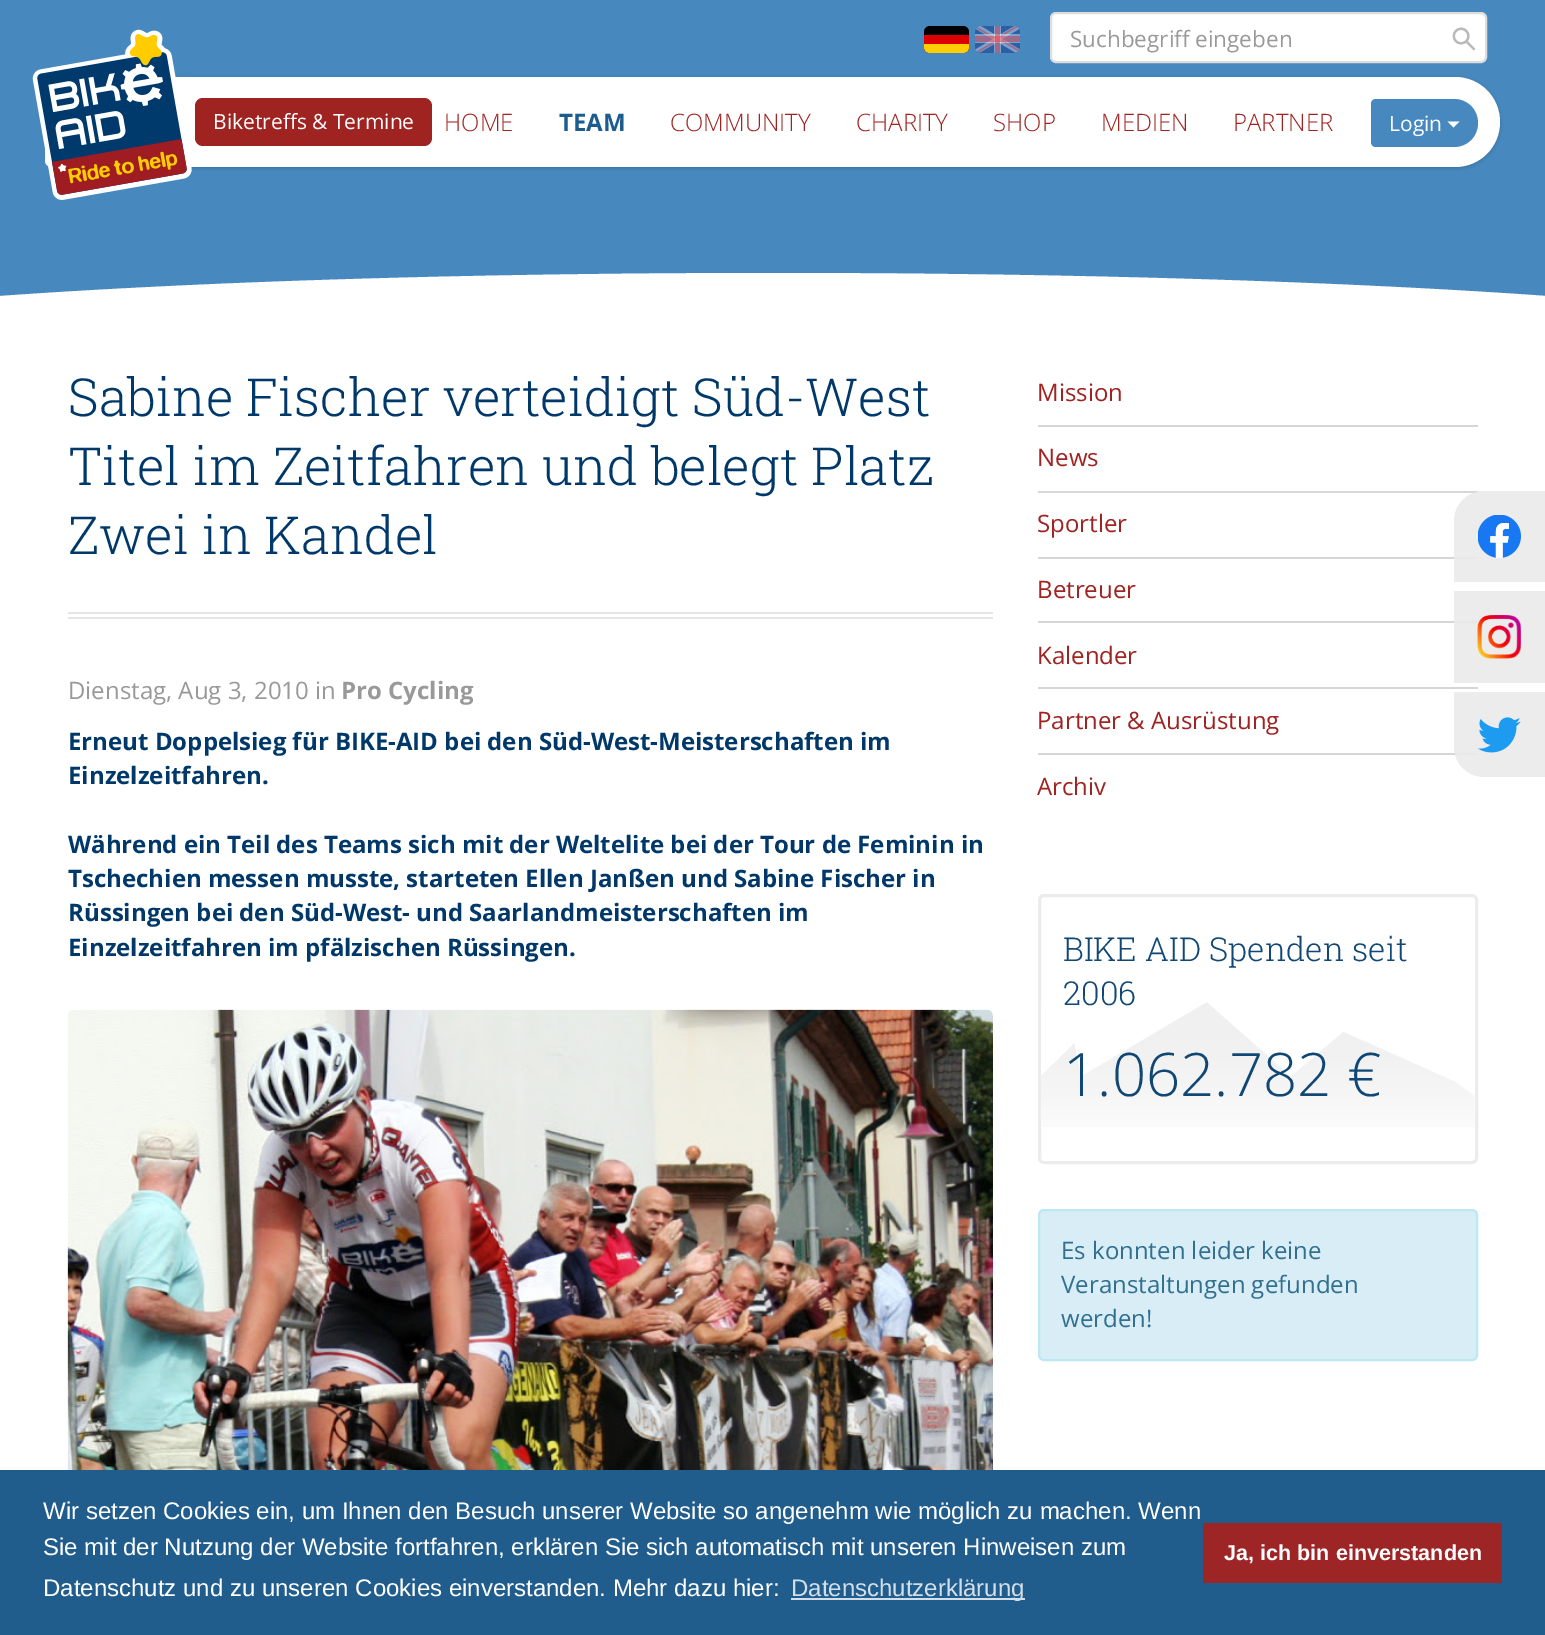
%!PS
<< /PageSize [1545 1635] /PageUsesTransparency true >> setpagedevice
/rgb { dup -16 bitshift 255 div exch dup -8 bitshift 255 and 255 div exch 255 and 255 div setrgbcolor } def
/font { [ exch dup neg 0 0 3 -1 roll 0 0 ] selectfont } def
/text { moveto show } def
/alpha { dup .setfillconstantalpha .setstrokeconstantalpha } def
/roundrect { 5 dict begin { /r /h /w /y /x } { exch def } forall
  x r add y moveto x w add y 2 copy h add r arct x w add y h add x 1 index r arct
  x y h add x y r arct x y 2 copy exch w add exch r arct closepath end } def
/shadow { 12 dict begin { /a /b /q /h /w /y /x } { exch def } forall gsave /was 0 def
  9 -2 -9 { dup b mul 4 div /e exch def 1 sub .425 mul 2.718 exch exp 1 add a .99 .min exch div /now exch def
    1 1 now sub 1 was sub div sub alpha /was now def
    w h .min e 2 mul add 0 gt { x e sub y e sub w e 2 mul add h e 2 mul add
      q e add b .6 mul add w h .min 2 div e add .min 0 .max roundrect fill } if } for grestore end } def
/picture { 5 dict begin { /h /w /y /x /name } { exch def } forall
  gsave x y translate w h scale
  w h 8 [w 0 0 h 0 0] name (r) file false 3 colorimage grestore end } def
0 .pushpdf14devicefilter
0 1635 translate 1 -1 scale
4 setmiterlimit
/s1 { /OpenSans-Regular 22.5 font 16#999999 rgb } def
/s2 { /OpenSans-Regular 21 font 16#FFFFFF rgb } def
/s3 { /OpenSans-Light 24 font 16#9F2321 rgb } def
/s4 { /OpenSans-Bold 24 font 16#1D5C8E rgb } def
/s5 { /RobotoSlab-Light 52.5 font 16#00386A rgb } def
/s6 { /OpenSans-Regular 24 font 16#999999 rgb } def
/s7 { /OpenSans-Bold 24 font 16#999999 rgb } def
/s8 { /OpenSans-Bold 24 font 16#00386A rgb } def
/s9 { /OpenSans-Regular 24 font 16#9F2321 rgb } def
/s10 { /RobotoSlab-Light 33 font 16#104774 rgb } def
/s11 { /OpenSans-Light 60 font 16#104774 rgb } def
/s12 { /OpenSans-Regular 24 font 16#31708F rgb } def
/s13 { /LiberationSans-Regular 24 font 16#FFFFFF rgb } def
/s14 { /LiberationSans-Regular 24 font 16#D3DFE8 rgb } def
/s15 { /LiberationSans-Bold 21.6 font 16#FFFFFF rgb } def
16#FFFFFF rgb
0 0 1545 1635 rectfill
16#ECECEC rgb
1454 591 91 92 rectfill
16#4789BE rgb
0 0 1545 296 rectfill
16#000000 rgb
45 78 1455 90 45 2 0.2 shadow
16#FFFFFF rgb
51 77 moveto 1455 77 lineto 1480 77 1500 97 1500 122 curveto 1500 147 1480 167 1455 167 curveto 51 167 lineto 47.5 167 45 164.5 45 161 curveto 45 83 lineto 45 79.5 47.5 77 51 77 curveto closepath fill
(pic1.raw) 32 29 160 171 picture
16#000000 rgb
924 26 45 27 6 roundrect fill
(pic2.raw) 975 26 45 27 picture
16#DD0000 rgb
924 35 moveto 969 35 lineto 969 47 lineto 969 50.5 966.5 53 963 53 curveto 930 53 lineto 926.5 53 924 50.5 924 47 curveto closepath fill
16#FFCE00 rgb
924 44 moveto 969 44 lineto 969 47 lineto 969 50.5 966.5 53 963 53 curveto 930 53 lineto 926.5 53 924 50.5 924 47 curveto closepath fill
16#FFFFFF rgb
1051 13 435 49 5 roundrect gsave fill grestore
16#DDDDDD rgb
2 setlinewidth
stroke
s1
(Suchbegriff eingeben) 1070 47 text
(pic3.raw) 1452 27 24 24 picture
16#9F2321 rgb
195 98 237 48 8 roundrect fill
s2
(Biketreffs & Termine) 213 129 text
s3
(HOME) 444 131 text
s4
(TEAM) 559 131 text
s3
(COMMUNITY) 670 131 text
(CHARITY) 856 131 text
(SHOP) 993 131 text
(MEDIEN) 1101 131 text
(PARTNER) 1233 131 text
16#4789BE rgb
1376 99 moveto 1454 99 lineto 1467.5 99 1478 109.5 1478 123 curveto 1478 136.5 1467.5 147 1454 147 curveto 1376 147 lineto 1373 147 1371 145 1371 142 curveto 1371 104 lineto 1371 101 1373 99 1376 99 curveto closepath fill
s2
(Login) 1389 131 text
1447.5 121.5 moveto 1459.5 121.5 lineto 1453.5 127.5 lineto closepath fill
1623 302 moveto 1415 284 1112 273 773 273 curveto 435 273 131 284 -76 302 curveto -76 361 lineto 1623 361 lineto closepath fill
16#E5E5E5 rgb
68 612 925 2 rectfill
68 617 925 2 rectfill
s5
(Sabine Fischer verteidigt Süd-West) 68 416 text
(Titel im Zeitfahren und belegt Platz) 68 485 text
(Zwei in Kandel) 68 554 text
s6
(Dienstag, Aug 3, 2010 in) 68 699 text
s7
(Pro Cycling) 341 699 text
s8
(Erneut Doppelsieg für BIKE-AID bei den Süd-West-Meisterschaften im) 68 750 text
(Einzelzeitfahren.) 68 784 text
(Während ein Teil des Teams sich mit der Weltelite bei der Tour de Feminin in) 68 853 text
(Tschechien messen musste, starteten Ellen Janßen und Sabine Fischer in) 68 887 text
(Rüssingen bei den Süd-West- und Saarlandmeisterschaften im) 68 921 text
(Einzelzeitfahren im pfälzischen Rüssingen.) 68 956 text
(pic4.raw) 67 1009 926 461 picture
16#D6D6D6 rgb
1038 425 440 2 rectfill
s9
(Mission) 1037 401 text
16#D6D6D6 rgb
1038 491 440 2 rectfill
s9
(News) 1037 466 text
16#D6D6D6 rgb
1038 557 440 2 rectfill
s9
(Sportler) 1037 532 text
16#D6D6D6 rgb
1038 621 416 2 rectfill
16#E8E8E8 rgb
1454 621 24 2 rectfill
s9
(Betreuer) 1037 598 text
16#D6D6D6 rgb
1038 687 440 2 rectfill
s9
(Kalender) 1037 664 text
16#D6D6D6 rgb
1038 753 440 2 rectfill
s9
(Partner & Ausrüstung) 1037 729 text
(Archiv) 1037 795 text
16#ECECEC rgb
3 setlinewidth
1039.5 895.5 437 267 4.5 roundrect stroke
(pic5.raw) 1041 1002 434 125 picture
s10
(BIKE AID Spenden seit) 1063 961 text
(2006) 1063 1005 text
s11
(1.062.782 €) 1063 1096 text
16#D9EDF7 rgb
1039 1210 438 150 5 roundrect gsave fill grestore
16#BCE8F1 rgb
2 setlinewidth
stroke
s12
(Es konnten leider keine) 1061 1259 text
(Veranstaltungen gefunden) 1061 1293 text
(werden!) 1061 1327 text
0.9 alpha
16#EAEAEA rgb
1484 491 moveto 1545 491 lineto 1545 582 lineto 1454 582 lineto 1454 521 lineto 1454 504.5 1467.5 491 1484 491 curveto closepath fill
1 alpha
(pic6.raw) 1478 515 43 43 picture
(pic7.raw) 1477 615 44 44 picture
0.9 alpha
1454 692 moveto 1545 692 lineto 1545 777 lineto 1484 777 lineto 1467.5 777 1454 763.5 1454 747 curveto closepath fill
1 alpha
(pic8.raw) 1478 717 43 36 picture
16#215D8C rgb
0 1470 1545 165 rectfill
s13
(Wir setzen Cookies ein, um Ihnen den Besuch unserer Website so angenehm wie möglich zu machen. Wenn) 43 1519 text
(Sie mit der Nutzung der Website fortfahren, erklären Sie sich automatisch mit unseren Hinweisen zum) 43 1555 text
(Datenschutz und zu unseren Cookies einverstanden. Mehr dazu hier:) 43 1596 text
16#D3DFE8 rgb
791 1598 234 2 rectfill
(Datenschutzerklärung) 791 1596 text
16#9D2526 rgb
1203 1523 299 60 rectfill
s15
(Ja, ich bin einverstanden) 1224 1560 text
.poppdf14devicefilter showpage
